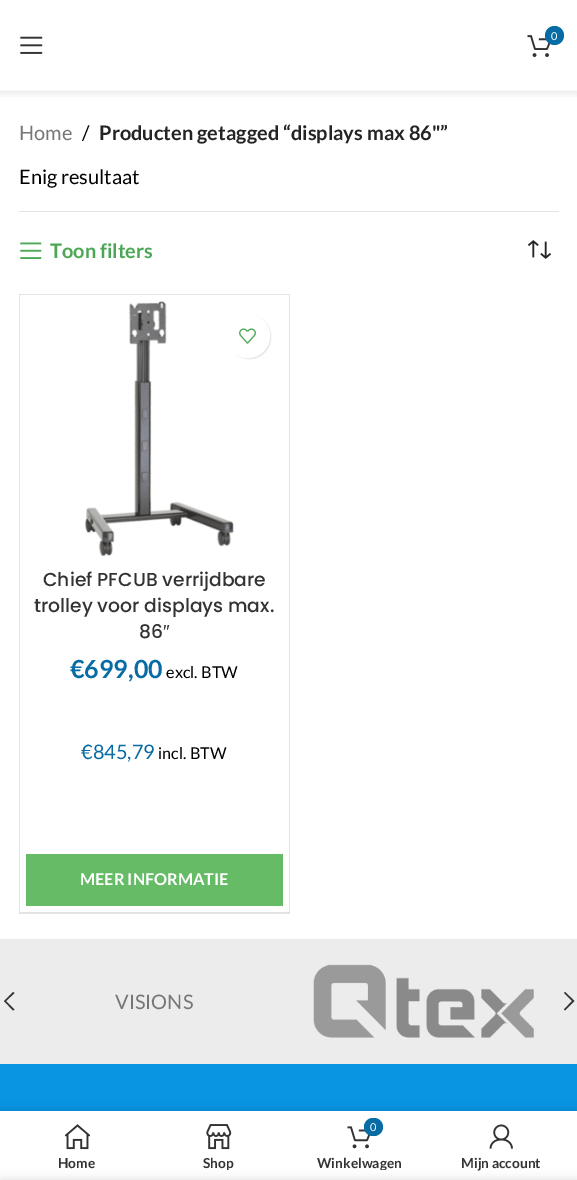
%!PS
<< /PageSize [577 1180] /PageUsesTransparency true >> setpagedevice
/rgb { dup -16 bitshift 255 div exch dup -8 bitshift 255 and 255 div exch 255 and 255 div setrgbcolor } def
/font { [ exch dup neg 0 0 3 -1 roll 0 0 ] selectfont } def
/text { moveto show } def
/alpha { dup .setfillconstantalpha .setstrokeconstantalpha } def
/circle { newpath 0 360 arc closepath } def
/roundrect { 5 dict begin { /r /h /w /y /x } { exch def } forall
  x r add y moveto x w add y 2 copy h add r arct x w add y h add x 1 index r arct
  x y h add x y r arct x y 2 copy exch w add exch r arct closepath end } def
/shadow { 12 dict begin { /a /b /q /h /w /y /x } { exch def } forall gsave /was 0 def
  9 -2 -9 { dup b mul 4 div /e exch def 1 sub .425 mul 2.718 exch exp 1 add a .99 .min exch div /now exch def
    1 1 now sub 1 was sub div sub alpha /was now def
    w h .min e 2 mul add 0 gt { x e sub y e sub w e 2 mul add h e 2 mul add
      q e add b .6 mul add w h .min 2 div e add .min 0 .max roundrect fill } if } for grestore end } def
/picture { 5 dict begin { /h /w /y /x /name } { exch def } forall
  gsave x y translate w h scale
  w h 8 [w 0 0 h 0 0] name (r) file false 3 colorimage grestore end } def
0 .pushpdf14devicefilter
0 1180 translate 1 -1 scale
4 setmiterlimit
/s1 { /Lato-Regular 11 font 16#FFFFFF rgb } def
/s2 { /Lato-Regular 20 font 16#767676 rgb } def
/s3 { /Lato-Regular 20 font 16#000000 rgb } def
/s4 { /Lato-Bold 20 font 16#242424 rgb } def
/s5 { /Lato-Bold 20 font 16#4DA656 rgb } def
/s6 { /Poppins-Medium 18.75 font 16#333333 rgb } def
/s7 { /LiberationSans-Regular 18.75 font 16#333333 rgb } def
/s8 { /Lato-Bold 25 font 16#086CA4 rgb } def
/s9 { /Lato-Regular 16.25 font 16#000000 rgb } def
/s10 { /Lato-Regular 20 font 16#086CA4 rgb } def
/s11 { /Lato-Bold 16.25 font 16#FFFFFF rgb } def
/s12 { /Lato-Bold 13.75 font 16#333333 rgb } def
16#FFFFFF rgb
0 0 577 1180 rectfill
gsave
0 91 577 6 rectclip
16#000000 rgb
0 1 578 92 0 5 0.1 shadow
grestore
16#FAFAFA rgb
0 90 577 1 rectfill
(pic1.raw) 20 36 23 18 picture
(pic2.raw) 527 35 24 22 picture
16#086CA4 rgb
554.5 35.5 9.5 circle fill
s1
(0) 551 40 text
16#E4E4E4 rgb
19 211 540 1 rectfill
s2
(Home) 19 140 text
s3
(/) 82 140 text
s4
(Producten getagged “displays max 86"”) 99 140 text
s3
(Enig resultaat) 19 184 text
(pic3.raw) 20 242 22 17 picture
s5
(Toon filters) 50 258 text
(pic4.raw) 527 240 25 19 picture
16#E4E4E4 rgb
19 294 1 620 rectfill
20 294 moveto 290 294 lineto 289 295 lineto 20 295 lineto closepath fill
0.11 alpha
16#000000 rgb
290 294 moveto 290 914 lineto 289 912 lineto 289 295 lineto closepath fill
290 914 moveto 20 914 lineto 20 912 lineto 289 912 lineto closepath fill
1 alpha
(pic5.raw) 84 301 150 256 picture
228 315 43 44 21.5 0.5 0.1 shadow
16#FFFFFF rgb
248 336 22 circle fill
(pic6.raw) 239 328 17 16 picture
s6
(Chief PFCUB verrijdbare) 43 586 text
(trolley voor displays max.) 34 612 text
(86) 139 638 text
s7
(″) 163 638 text
s8
(€699,00) 70 678 text
s9
(excl. BTW) 166 678 text
s10
(€845,79) 81 759 text
s9
(incl. BTW) 158 759 text
16#66BB66 rgb
26 854 257 52 rectfill
s11
(MEER INFORMATIE) 80 885 text
16#ECECEC rgb
0 939 577 125 rectfill
16#333333 rgb
14.5 993 moveto 13 992 lineto 4 1001 lineto 13 1010.5 lineto 14.5 1009.5 lineto 6 1001 lineto closepath fill
564 993 moveto 572 1001 lineto 564 1009.5 lineto 565 1010.5 lineto 574.5 1001 lineto 565 992 lineto closepath fill
s2
(VISIONS) 115 1009 text
(pic7.raw) 313 964 221 74 picture
16#0895E2 rgb
0 1064 577 47 rectfill
16#000000 rgb
0 1111 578 69 0 5.5 0.12 shadow
16#FFFFFF rgb
0 1111 577 69 rectfill
(pic8.raw) 65 1124 25 26 picture
s12
(Home) 58 1168 text
(pic9.raw) 206 1124 26 26 picture
gsave
160 1154 116 16 rectclip
(Shop) 203 1168 text
grestore
(pic10.raw) 347 1126 24 23 picture
16#086CA4 rgb
364 1118 19 18 9 roundrect fill
s1
(0) 370 1131 text
gsave
301 1154 117 16 rectclip
s12
(Winkelwagen) 317 1168 text
grestore
(pic11.raw) 489 1124 24 25 picture
s12
(Mijn account) 461 1168 text
16#000000 rgb
0 1180 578 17 0 5.5 0.14 shadow
.poppdf14devicefilter showpage
